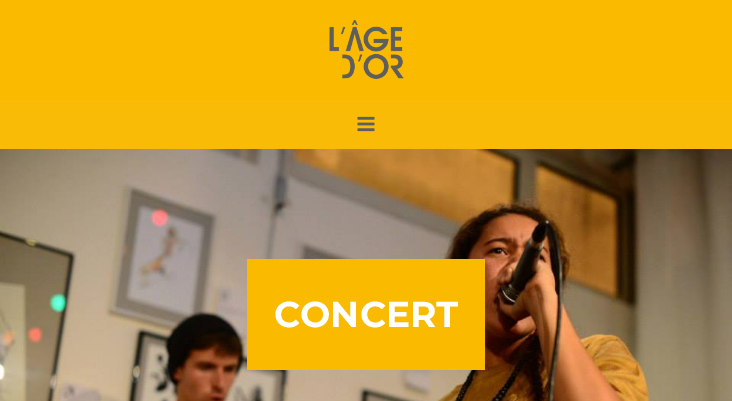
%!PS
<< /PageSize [732 401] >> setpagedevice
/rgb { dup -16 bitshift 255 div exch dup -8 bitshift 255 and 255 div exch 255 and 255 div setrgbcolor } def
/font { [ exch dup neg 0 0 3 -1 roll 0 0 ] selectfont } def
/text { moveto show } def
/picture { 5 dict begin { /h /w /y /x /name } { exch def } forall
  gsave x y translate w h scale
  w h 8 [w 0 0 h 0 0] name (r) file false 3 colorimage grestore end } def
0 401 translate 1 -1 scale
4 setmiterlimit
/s1 { /Montserrat-Bold 36 font 16#FFFFFF rgb } def
16#F9BA00 rgb
0 0 732 401 rectfill
(pic1.raw) 329 20 75 59 picture
16#F9BB05 rgb
0 99 732 50 rectfill
(pic2.raw) 357 116 18 16 picture
(pic3.raw) 0 149 732 252 picture
16#F9BA00 rgb
247 259 238 111 rectfill
s1
(CONCERT) 274 327 text
showpage
